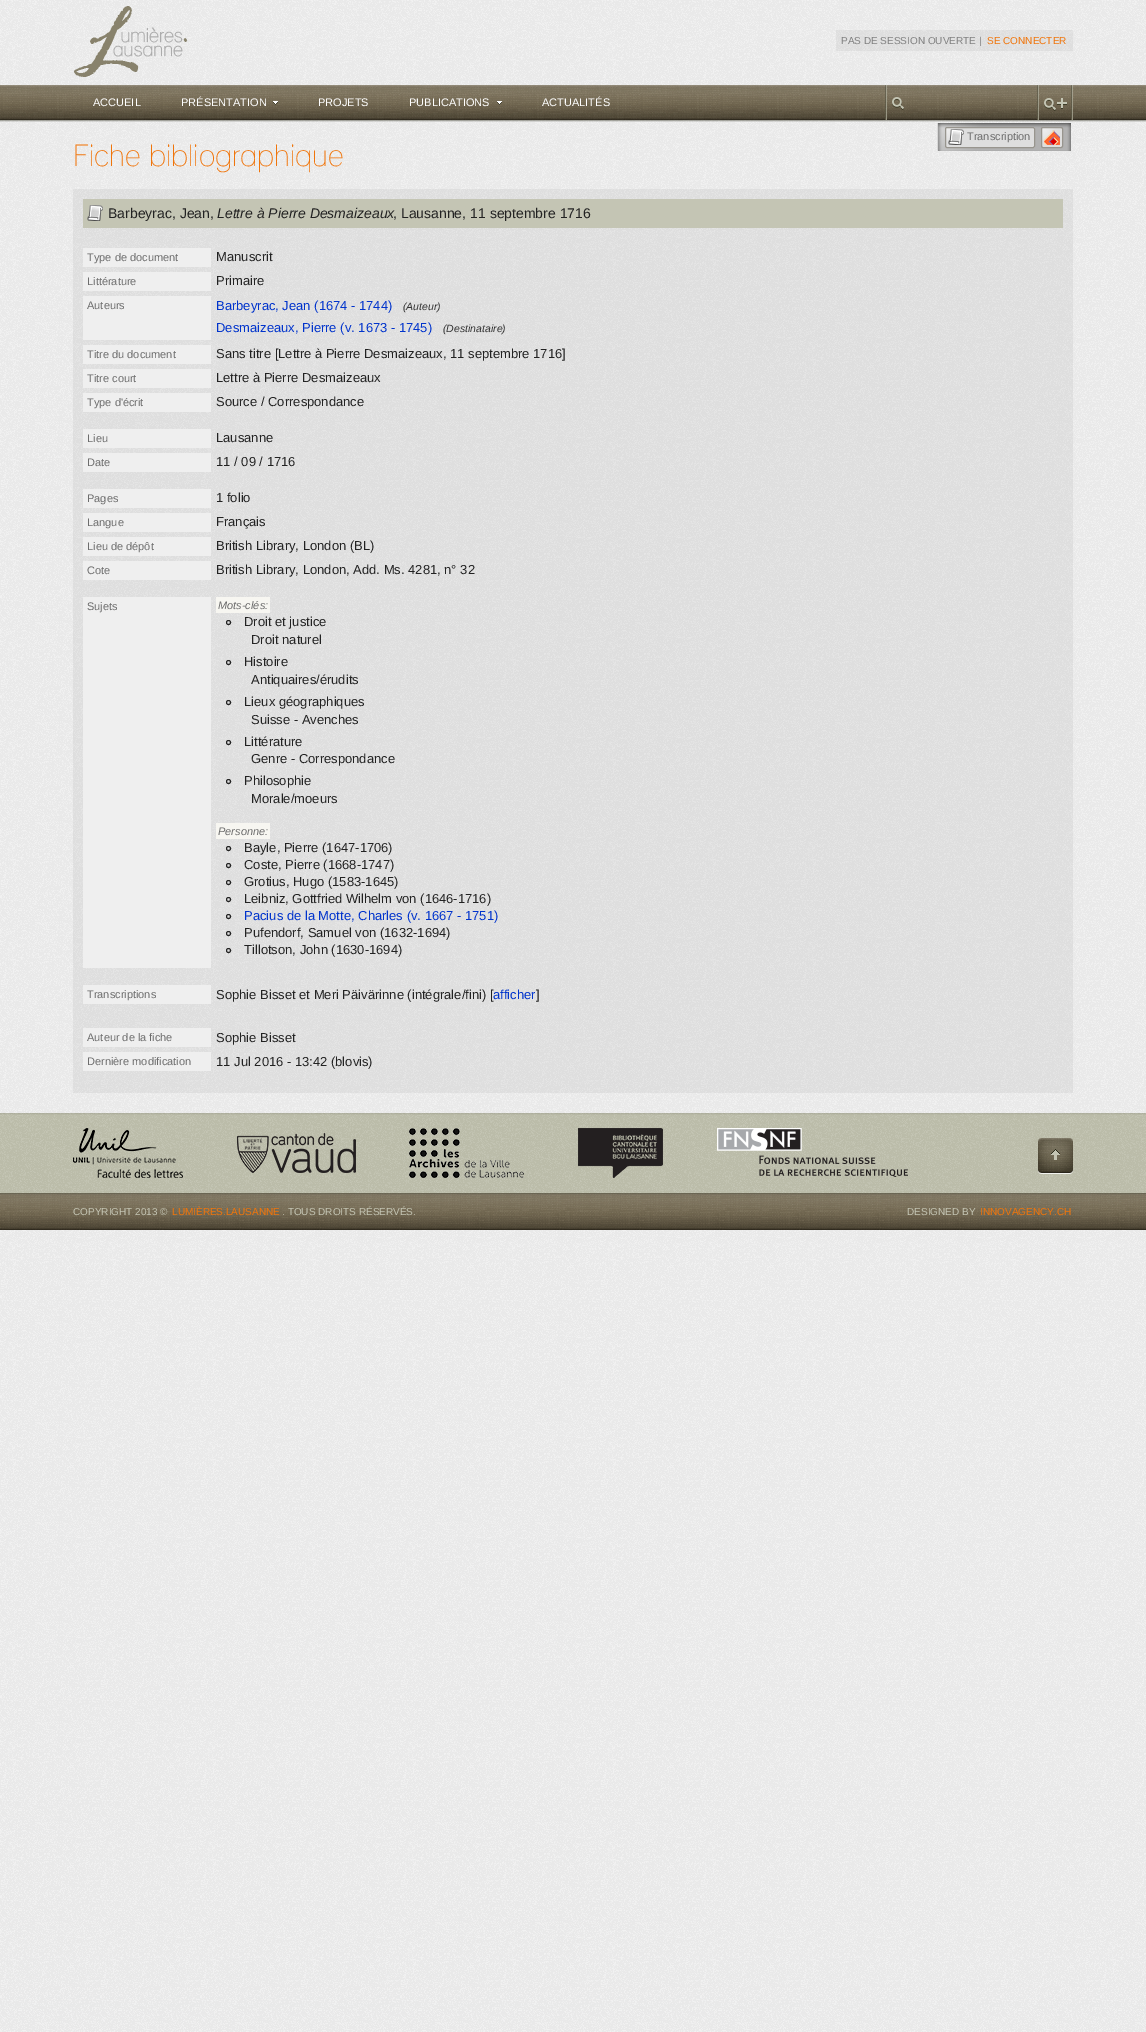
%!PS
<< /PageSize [1146 2032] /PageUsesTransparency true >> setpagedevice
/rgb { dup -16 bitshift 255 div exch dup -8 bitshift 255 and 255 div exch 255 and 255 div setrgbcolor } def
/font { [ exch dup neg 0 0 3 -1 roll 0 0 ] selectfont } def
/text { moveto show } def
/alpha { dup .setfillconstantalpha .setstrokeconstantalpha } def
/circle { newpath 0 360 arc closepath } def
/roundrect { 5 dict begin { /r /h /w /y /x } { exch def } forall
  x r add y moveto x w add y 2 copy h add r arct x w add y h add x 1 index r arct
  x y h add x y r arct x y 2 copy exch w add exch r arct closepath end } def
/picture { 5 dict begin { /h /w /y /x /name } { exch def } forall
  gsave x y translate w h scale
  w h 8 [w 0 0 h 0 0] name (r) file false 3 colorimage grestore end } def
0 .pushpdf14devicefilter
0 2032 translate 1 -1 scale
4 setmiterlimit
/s1 { /LiberationSans-Regular 10 font 16#808080 rgb } def
/s2 { /LiberationSans-Regular 10 font 16#F0750B rgb } def
/s3 { /LiberationSans-Regular 11 font 16#FFFFFF rgb } def
/s4 { /LiberationSans-Regular 11 font 16#6C6C6C rgb } def
/s5 { /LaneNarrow-Regular 30 font 16#F0750B rgb } def
/s6 { /LiberationSans-Regular 14 font 16#222222 rgb } def
/s7 { /LiberationSans-Italic 14 font 16#222222 rgb } def
/s8 { /LiberationSans-Regular 13 font 16#222222 rgb } def
/s9 { /LiberationSans-Regular 13 font 16#0033CC rgb } def
/s10 { /LiberationSans-Italic 10.5 font 16#333333 rgb } def
/s11 { /LiberationSans-Italic 11 font 16#6C6C6C rgb } def
/s12 { /LiberationSans-Regular 10 font 16#C4C5B4 rgb } def
16#FFFFFF rgb
0 0 1146 2032 rectfill
(pic1.raw) 0 0 1146 2032 picture
(pic2.raw) 74 6 114 71 picture
0.2 alpha
16#B4B4B4 rgb
836 30 237 21 rectfill
1 alpha
s1
(PAS DE SESSION OUVERTE |) 841 44 text
s2
(SE CONNECTER) 987 44 text
(pic3.raw) 0 85 1146 37 picture
s3
(ACCUEIL) 93 106 text
(pic4.raw) 273 101 5 4 picture
(PRÉSENTATION) 181 106 text
(PROJETS) 318 106 text
(pic5.raw) 497 101 5 4 picture
(PUBLICATIONS) 409 106 text
(ACTUALITÉS) 542 106 text
(pic6.raw) 885 85 2 35 picture
(pic7.raw) 892 97 12 13 picture
(pic6.raw) 1037 85 2 35 picture
(pic8.raw) 1044 98 23 13 picture
(pic6.raw) 1071 85 2 35 picture
(pic9.raw) 937 123 130 28 picture
16#DEDEDE rgb
945 127 90 21 2 roundrect fill
(pic10.raw) 946 128 20 20 picture
16#98958E rgb
945.5 127.5 89 20 1.5 roundrect stroke
(pic11.raw) 948 129 16 16 picture
s4
(Transcription) 967 140 text
(pic12.raw) 1042 128 20 20 picture
16#98958E rgb
1041.5 127.5 21 20 1.5 roundrect stroke
(pic13.raw) 1044 130 16 15 picture
(pic14.raw) 1067 123 4 28 picture
s5
(Fiche bibliographique) 73 166 text
0.2 alpha
16#B4B4B4 rgb
73 189 1000 904 rectfill
1 alpha
16#C4C5B4 rgb
83 199 980 29 rectfill
(pic15.raw) 87 205 16 16 picture
s6
(Barbeyrac, Jean,) 108 218 text
s7
(Lettre à Pierre Desmaizeaux) 217 218 text
s6
(, Lausanne, 11 septembre 1716) 393 218 text
16#EFEFEF rgb
83 248 128 19 rectfill
s4
(Type de document) 87 261 text
s8
(Manuscrit) 216 261 text
16#EFEFEF rgb
83 272 128 19 rectfill
s4
(Littérature) 87 285 text
s8
(Primaire) 216 285 text
16#EFEFEF rgb
83 296 128 44 rectfill
s4
(Auteurs) 87 309 text
s9
(Barbeyrac, Jean \(1674 - 1744\)) 216 310 text
s10
(\(Auteur\)) 403 310 text
s9
(Desmaizeaux, Pierre \(v. 1673 - 1745\)) 216 332 text
s10
(\(Destinataire\)) 443 332 text
16#EFEFEF rgb
83 345 128 19 rectfill
s4
(Titre du document) 87 358 text
s8
(Sans titre [Lettre à Pierre Desmaizeaux, 11 septembre 1716]) 216 358 text
16#EFEFEF rgb
83 369 128 19 rectfill
s4
(Titre court) 87 382 text
s8
(Lettre à Pierre Desmaizeaux) 216 382 text
16#EFEFEF rgb
83 393 128 19 rectfill
s4
(Type d'écrit) 87 406 text
s8
(Source / Correspondance) 216 406 text
16#EFEFEF rgb
83 429 128 19 rectfill
s4
(Lieu) 87 442 text
s8
(Lausanne) 216 442 text
16#EFEFEF rgb
83 453 128 19 rectfill
s4
(Date) 87 466 text
s8
(11 / 09 / 1716) 216 466 text
16#EFEFEF rgb
83 489 128 19 rectfill
s4
(Pages) 87 502 text
s8
(1 folio) 216 502 text
16#EFEFEF rgb
83 513 128 19 rectfill
s4
(Langue) 87 526 text
s8
(Français) 216 526 text
16#EFEFEF rgb
83 537 128 19 rectfill
s4
(Lieu de dépôt) 87 550 text
s8
(British Library, London \(BL\)) 216 550 text
16#EFEFEF rgb
83 561 128 19 rectfill
s4
(Cote) 87 574 text
s8
(British Library, London, Add. Ms. 4281, n° 32) 216 574 text
16#EFEFEF rgb
83 597 128 371 rectfill
s4
(Sujets) 87 610 text
16#F7F6F1 rgb
216 597 54 16 rectfill
s11
(Mots-clés:) 218 609 text
16#222222 rgb
228.5 622.5 2 circle stroke
s8
(Droit et justice) 244 626 text
(Droit naturel) 251 644 text
228.5 662.5 2 circle stroke
(Histoire) 244 666 text
(Antiquaires/érudits) 251 684 text
228.5 702.5 2 circle stroke
(Lieux géographiques) 244 706 text
(Suisse - Avenches) 251 724 text
228.5 742.5 2 circle stroke
(Littérature) 244 746 text
(Genre - Correspondance) 251 763 text
228.5 781.5 2 circle stroke
(Philosophie) 244 785 text
(Morale/moeurs) 251 803 text
16#F7F6F1 rgb
216 823 54 16 rectfill
s11
(Personne:) 218 835 text
16#222222 rgb
228.5 848.5 2 circle stroke
s8
(Bayle, Pierre \(1647-1706\)) 244 852 text
228.5 865.5 2 circle stroke
(Coste, Pierre \(1668-1747\)) 244 869 text
228.5 882.5 2 circle stroke
(Grotius, Hugo \(1583-1645\)) 244 886 text
228.5 899.5 2 circle stroke
(Leibniz, Gottfried Wilhelm von \(1646-1716\)) 244 903 text
228.5 916.5 2 circle stroke
s9
(Pacius de la Motte, Charles \(v. 1667 - 1751\)) 244 920 text
16#222222 rgb
228.5 933.5 2 circle stroke
(Pufendorf, Samuel von \(1632-1694\)) 244 937 text
228.5 950.5 2 circle stroke
(Tillotson, John \(1630-1694\)) 244 954 text
16#EFEFEF rgb
83 985 128 19 rectfill
s4
(Transcriptions) 87 998 text
s8
(Sophie Bisset et Meri Päivärinne \(intégrale/fini\) [) 216 999 text
s9
(afficher) 493 999 text
s8
(]) 536 999 text
16#EFEFEF rgb
83 1028 128 19 rectfill
s4
(Auteur de la fiche) 87 1041 text
s8
(Sophie Bisset) 216 1042 text
16#EFEFEF rgb
83 1052 128 19 rectfill
s4
(Dernière modification) 87 1065 text
s8
(11 Jul 2016 - 13:42 \(blovis\)) 216 1066 text
(pic16.raw) 0 1113 1146 80 picture
(pic17.raw) 73 1128 110 50 picture
(pic18.raw) 237 1133 119 40 picture
(pic19.raw) 409 1128 115 50 picture
(pic20.raw) 578 1128 85 50 picture
(pic21.raw) 717 1128 191 49 picture
(pic22.raw) 1038 1138 35 36 picture
(pic23.raw) 0 1193 1146 37 picture
s12
(COPYRIGHT 2013 ©) 73 1215 text
s2
(LUMIÈRES.LAUSANNE) 172 1215 text
s12
(. TOUS DROITS RÉSERVÉS.) 282 1215 text
(DESIGNED BY) 907 1215 text
s2
(INNOVAGENCY.CH) 980 1215 text
.poppdf14devicefilter showpage
